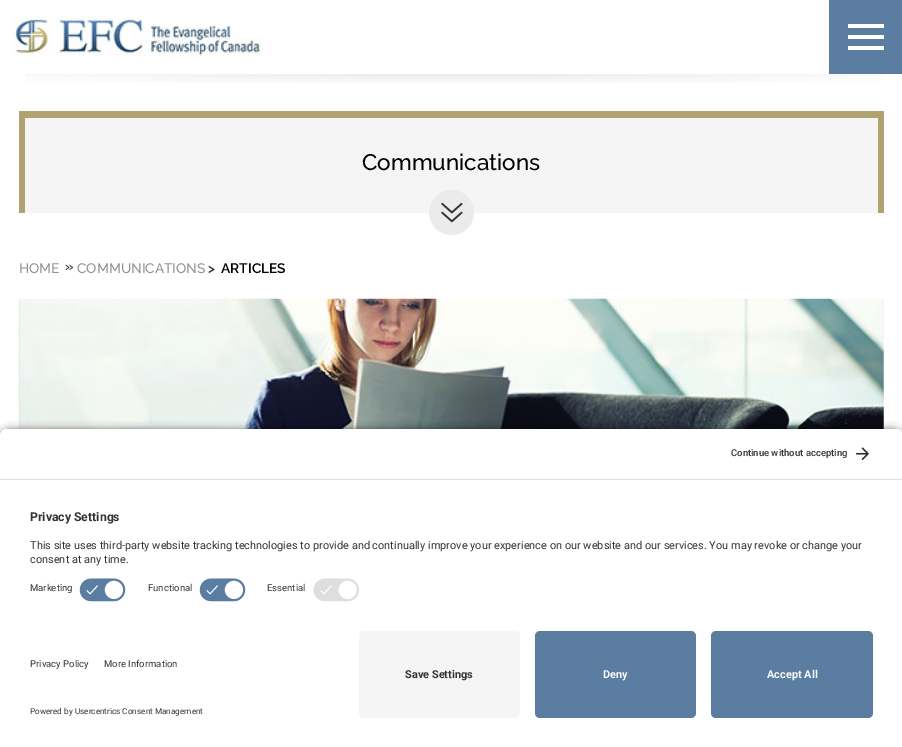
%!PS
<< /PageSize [902 747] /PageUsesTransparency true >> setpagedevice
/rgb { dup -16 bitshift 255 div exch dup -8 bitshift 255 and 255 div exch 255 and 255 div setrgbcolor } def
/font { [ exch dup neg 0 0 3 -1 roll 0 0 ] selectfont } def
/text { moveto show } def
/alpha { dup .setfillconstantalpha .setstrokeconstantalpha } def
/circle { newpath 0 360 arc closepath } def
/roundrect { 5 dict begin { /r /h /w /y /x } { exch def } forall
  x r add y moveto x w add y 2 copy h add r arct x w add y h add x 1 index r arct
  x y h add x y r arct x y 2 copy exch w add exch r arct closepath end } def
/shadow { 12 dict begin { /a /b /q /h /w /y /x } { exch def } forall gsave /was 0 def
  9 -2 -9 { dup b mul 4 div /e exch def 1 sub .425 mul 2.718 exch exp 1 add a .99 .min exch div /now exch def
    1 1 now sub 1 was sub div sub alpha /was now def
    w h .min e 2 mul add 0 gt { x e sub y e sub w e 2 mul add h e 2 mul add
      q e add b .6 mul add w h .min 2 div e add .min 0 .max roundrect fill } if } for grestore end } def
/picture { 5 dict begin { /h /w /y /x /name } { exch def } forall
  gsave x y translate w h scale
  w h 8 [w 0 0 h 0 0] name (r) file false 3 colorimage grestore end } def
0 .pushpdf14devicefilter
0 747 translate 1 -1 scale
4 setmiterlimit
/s1 { /Raleway-Medium 22.5 font 16#000000 rgb } def
/s2 { /Raleway-Medium 13.75 font 16#919191 rgb } def
/s3 { /Raleway-SemiBold 13.75 font 16#333333 rgb } def
/s4 { /Raleway-SemiBold 13.75 font 16#000000 rgb } def
/s5 { /Roboto-Medium 9.5 font 16#333333 rgb } def
/s6 { /Roboto-Bold 12.25 font 16#333333 rgb } def
/s7 { /Roboto-Regular 10.95 font 16#333333 rgb } def
/s8 { /Roboto-Regular 9.5 font 16#333333 rgb } def
/s9 { /Roboto-Regular 8.2 font 16#333333 rgb } def
/s10 { /Roboto-Bold 10.95 font 16#333333 rgb } def
/s11 { /Roboto-Bold 10.95 font 16#FAFAFA rgb } def
16#FFFFFF rgb
0 0 902 747 rectfill
(pic1.raw) 13 16 250 41 picture
16#5A7DA1 rgb
829 0 73 74 rectfill
16#FFFFFF rgb
848 24 36 4 rectfill
848 35 36 4 rectfill
848 46 36 4 rectfill
(pic2.raw) 25 74 856 9 picture
16#F5F5F5 rgb
25 118 853 95 rectfill
16#B1A36F rgb
19 111 865 7 rectfill
878 111 6 102 rectfill
19 111 6 102 rectfill
s1
(Communications) 362 170 text
16#EBEBEB rgb
451.5 212.5 22.5 circle fill
(pic3.raw) 441 202 22 21 picture
s2
(HOME) 19 273 text
s3
(») 65 271 text
s2
(COMMUNICATIONS) 77 273 text
s3
(>) 208 273 text
s4
(ARTICLES) 221 273 text
(pic4.raw) 18 298 866 131 picture
0 431 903 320 10 4.5 0.8 shadow
gsave
10 428 moveto 893 428 lineto 898.5 428 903 432.5 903 438 curveto 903 621 lineto 0 621 lineto 0 438 lineto 0 432.5 4.5 428 10 428 curveto closepath clip newpath
16#FFFFFF rgb
0 429 902 50 rectfill
grestore
16#DEDEDE rgb
0 479 902 1 rectfill
s5
(Continue without accepting) 731 456 text
(pic5.raw) 855 447 14 13 picture
16#FFFFFF rgb
0 480 902 267 rectfill
s6
(Privacy Settings) 30 521 text
s7
(This site uses third-party website tracking technologies to provide and continually improve your experience on our website and our services. You may revoke or change your) 30 549 text
(consent at any time.) 30 563 text
s8
(Marketing) 30 591 text
(pic6.raw) 79 578 47 24 picture
(Functional) 148 591 text
(pic6.raw) 199 578 47 24 picture
(Essential) 267 591 text
(pic7.raw) 313 578 46 24 picture
(Privacy Policy) 30 667 text
(More Information) 104 667 text
s9
(Powered by Usercentrics Consent Management) 30 714 text
16#F5F5F5 rgb
359 631 161 87 5 roundrect fill
s10
(Save Settings) 405 678 text
16#5A7DA1 rgb
535 631 161 87 5 roundrect fill
s11
(Deny) 603 678 text
16#5A7DA1 rgb
711 631 162 87 5 roundrect fill
s11
(Accept All) 767 678 text
.poppdf14devicefilter showpage
